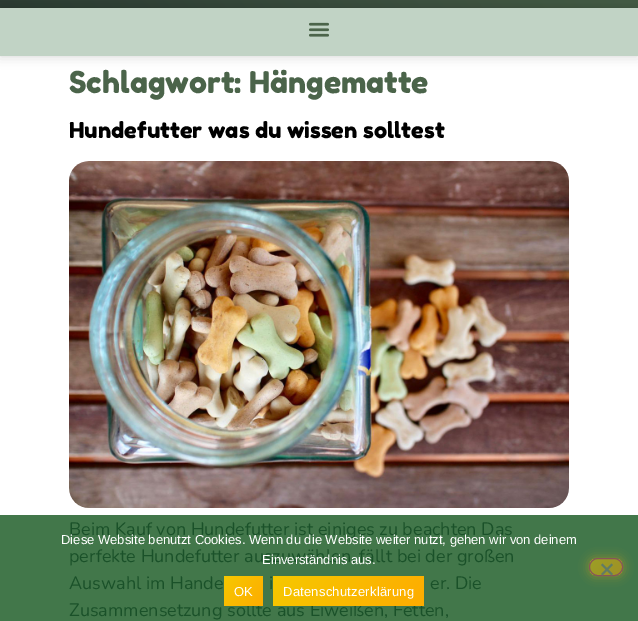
%!PS
<< /PageSize [638 621] /PageUsesTransparency true >> setpagedevice
/rgb { dup -16 bitshift 255 div exch dup -8 bitshift 255 and 255 div exch 255 and 255 div setrgbcolor } def
/font { [ exch dup neg 0 0 3 -1 roll 0 0 ] selectfont } def
/text { moveto show } def
/alpha { dup .setfillconstantalpha .setstrokeconstantalpha } def
/roundrect { 5 dict begin { /r /h /w /y /x } { exch def } forall
  x r add y moveto x w add y 2 copy h add r arct x w add y h add x 1 index r arct
  x y h add x y r arct x y 2 copy exch w add exch r arct closepath end } def
/shadow { 12 dict begin { /a /b /q /h /w /y /x } { exch def } forall gsave /was 0 def
  9 -2 -9 { dup b mul 4 div /e exch def 1 sub .425 mul 2.718 exch exp 1 add a .99 .min exch div /now exch def
    1 1 now sub 1 was sub div sub alpha /was now def
    w h .min e 2 mul add 0 gt { x e sub y e sub w e 2 mul add h e 2 mul add
      q e add b .6 mul add w h .min 2 div e add .min 0 .max roundrect fill } if } for grestore end } def
/picture { 5 dict begin { /h /w /y /x /name } { exch def } forall
  gsave x y translate w h scale
  w h 8 [w 0 0 h 0 0] name (r) file false 3 colorimage grestore end } def
0 .pushpdf14devicefilter
0 621 translate 1 -1 scale
4 setmiterlimit
/s1 { /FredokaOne-Regular 30 font 16#4B644A rgb } def
/s2 { /FredokaOne-Regular 22 font 16#000000 rgb } def
/s3 { /Nunito-Regular 18 font 16#1A5129 rgb } def
/s4 { /LiberationSans-Regular 13 font 16#FFFFFF rgb } def
16#FFFFFF rgb
0 0 638 621 rectfill
16#42774A rgb
0 515 638 106 rectfill
gsave 0 0 moveto 638 0 lineto 638 8 lineto 0 8 lineto closepath clip newpath
<< /ShadingType 2 /ColorSpace /DeviceRGB /Coords [551 -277 87 112] /Extend [true true] /Function << /FunctionType 2 /Domain [0 1] /C0 [0.294 0.392 0.29] /C1 [0.169 0.231 0.196] /N 1 >> >> shfill grestore
16#000000 rgb
0 8 638 48 0 6 0.17 shadow
16#C1D3C5 rgb
0 8 638 48 rectfill
(pic1.raw) 309 22 20 15 picture
s1
(Schlagwort: Hängematte) 69 93 text
s2
(Hundefutter was du wissen solltest) 69 138 text
(pic2.raw) 69 161 500 347 picture
s3
(Beim Kauf von Hundefutter ist einiges zu beachten Das) 69 535 text
(perfekte Hundefutter auszuwählen, fällt bei der großen) 69 562 text
(Auswahl im Hande) 69 589 text
(i) 269 589 text
(er. Die) 430 589 text
(Zusammensetzung sollte aus Eiweißen, Fetten,) 69 616 text
s4
(Diese Website benutzt Cookies. Wenn du die Website weiter nutzt, gehen wir von deinem) 61 544 text
(Einverständnis aus.) 262 564 text
16#A09125 rgb
589 558 34 18 9 5 0.79 shadow
gsave
589 558 34 18 9 roundrect clip newpath
gsave 590 559 moveto 622 559 lineto 622 575 lineto 590 575 lineto closepath clip newpath
<< /ShadingType 2 /ColorSpace /DeviceRGB /Coords [593 556 619 578] /Extend [true true] /Function << /FunctionType 2 /Domain [0 1] /C0 [0.612 0.624 0.145] /C1 [0.627 0.569 0.145] /N 1 >> >> shfill grestore
grestore
16#875558 rgb
589.5 558.5 33 17 8.5 roundrect stroke
16#617B65 rgb
611.5 563.5 moveto 613 565 lineto 602.5 575.5 lineto 601 574 lineto closepath fill
601 565 moveto 602.5 563.5 lineto 613 574 lineto 611.5 575.5 lineto closepath fill
gsave 224 576 39 30 3 roundrect clip newpath
<< /ShadingType 2 /ColorSpace /DeviceRGB /Coords [225 575 262 607] /Extend [true true] /Function << /FunctionType 2 /Domain [0 1] /C0 [0.965 0.784 0] /C1 [0.996 0.675 0.004] /N 1 >> >> shfill grestore
16#FFFFFF rgb
234 596 moveto 0.25 0 (OK) ashow
gsave 273 576 151 30 3 roundrect clip newpath
<< /ShadingType 2 /ColorSpace /DeviceRGB /Coords [297 548 400 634] /Extend [true true] /Function << /FunctionType 2 /Domain [0 1] /C0 [0.965 0.784 0] /C1 [0.996 0.675 0.004] /N 1 >> >> shfill grestore
283 596 moveto 0.25 0 (Datenschutzerklärung) ashow
.poppdf14devicefilter showpage
